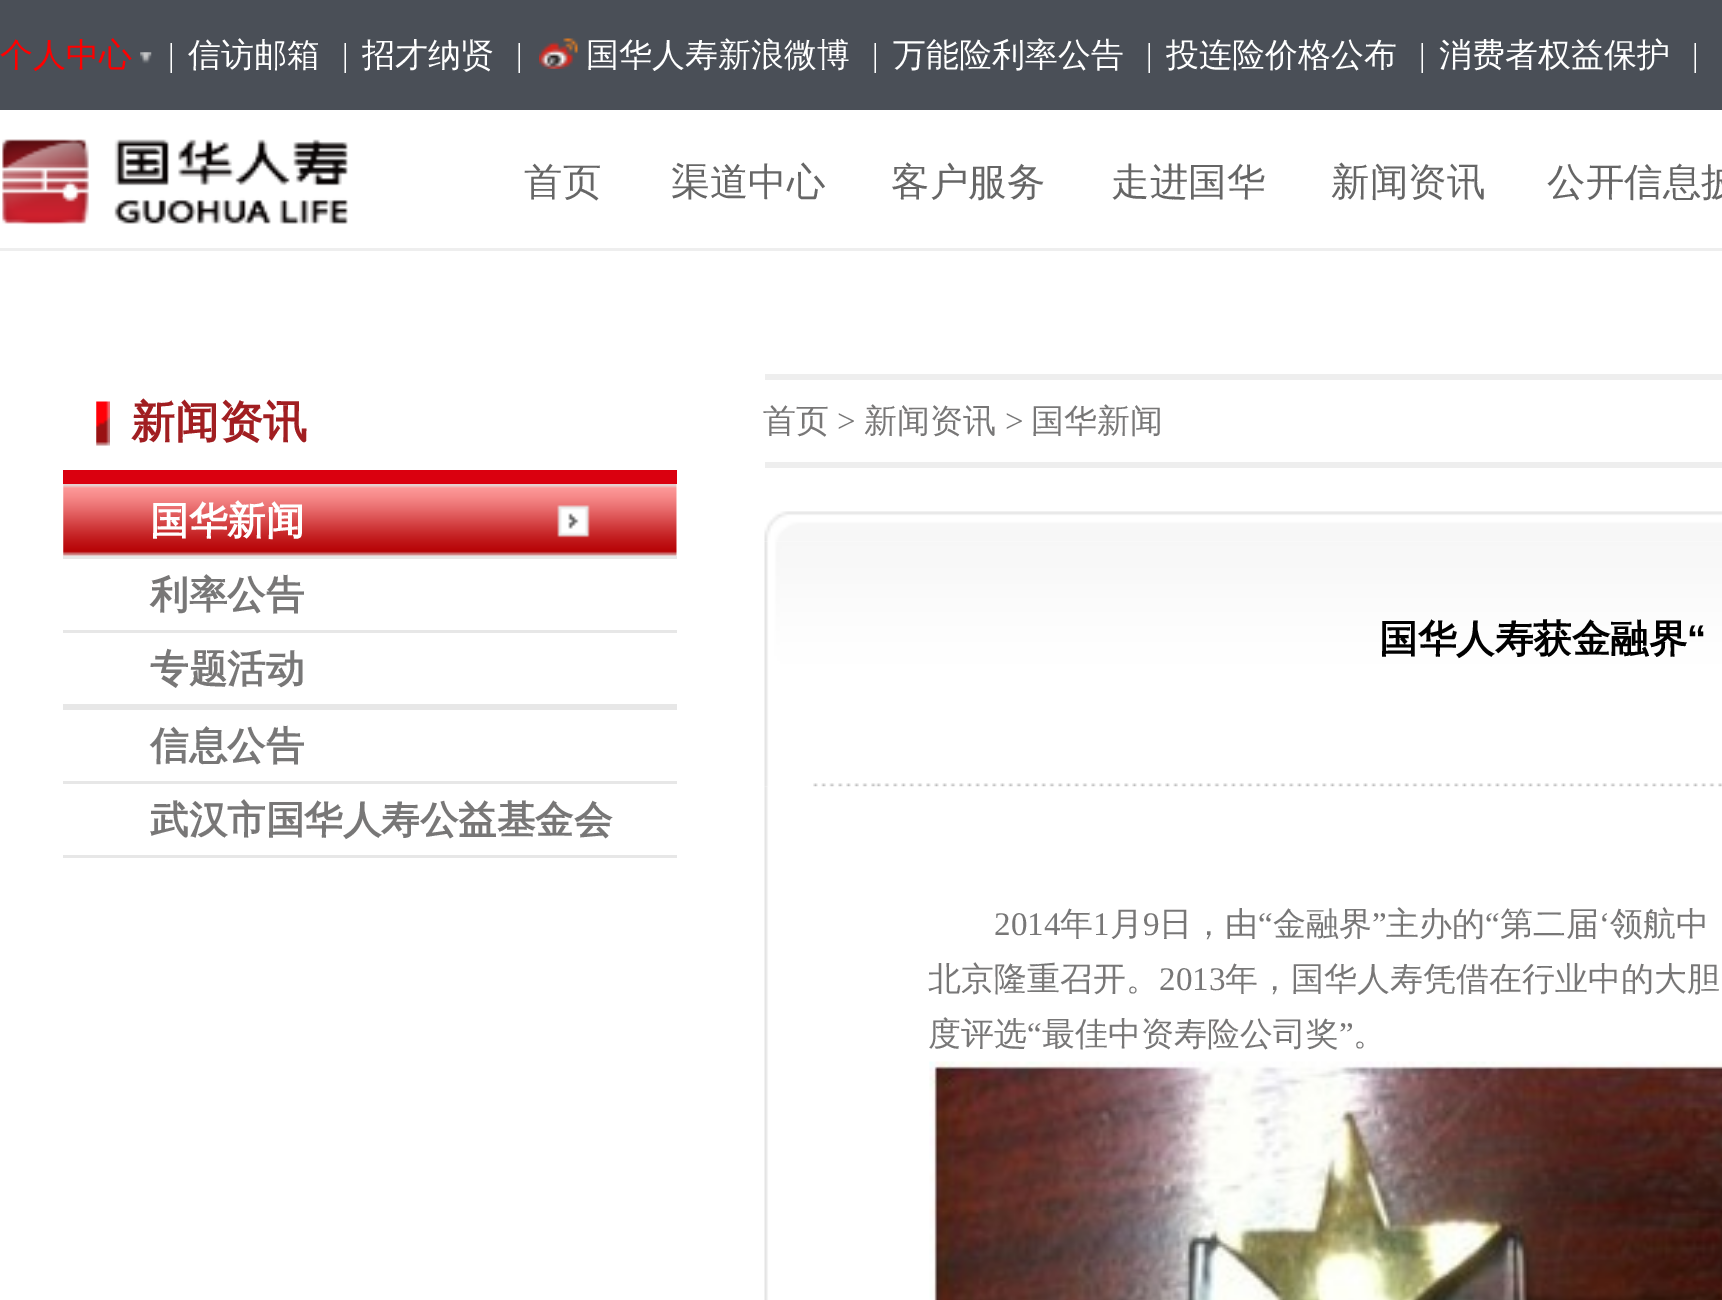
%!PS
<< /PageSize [1722 1300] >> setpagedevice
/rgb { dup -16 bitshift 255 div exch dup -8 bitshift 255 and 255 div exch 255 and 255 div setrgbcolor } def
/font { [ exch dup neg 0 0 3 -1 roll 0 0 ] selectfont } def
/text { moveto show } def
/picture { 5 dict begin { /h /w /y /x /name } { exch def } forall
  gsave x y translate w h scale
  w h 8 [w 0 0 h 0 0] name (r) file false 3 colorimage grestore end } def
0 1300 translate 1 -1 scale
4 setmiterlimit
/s1 { /WenQuanYiZenHei-Medium 33 font 16#FF0000 rgb } def
/s2 { /LiberationSerif-Regular 33 font 16#FFFFFF rgb } def
/s3 { /WenQuanYiZenHei-Medium 33 font 16#FFFFFF rgb } def
/s4 { /WenQuanYiZenHei-Medium 38.5 font 16#666666 rgb } def
/s5 { /WenQuanYiZenHei-Bold 44 font 16#A11E21 rgb } def
/s6 { /WenQuanYiZenHei-Bold 38.5 font 16#FFFFFF rgb } def
/s7 { /WenQuanYiZenHei-Bold 38.5 font 16#787777 rgb } def
/s8 { /WenQuanYiZenHei-Medium 33 font 16#787777 rgb } def
/s9 { /LiberationSerif-Regular 33 font 16#787777 rgb } def
/s10 { /WenQuanYiZenHei-Bold 38.5 font 16#000000 rgb } def
/s11 { /LiberationSans-Bold 38.5 font 16#000000 rgb } def
16#FFFFFF rgb
0 0 1722 1300 rectfill
16#4A4F57 rgb
0 0 1722 110 rectfill
s1
(个人中心) 0 66 text
(pic1.raw) 140 52 12 12 picture
s2
(|) 168 66 text
s3
(信访邮箱) 188 66 text
s2
(|) 342 66 text
s3
(招才纳贤) 362 66 text
s2
(|) 516 66 text
(pic2.raw) 539 38 39 31 picture
s3
(国华人寿新浪微博) 586 66 text
s2
(|) 872 66 text
s3
(万能险利率公告) 893 66 text
s2
(|) 1146 66 text
s3
(投连险价格公布) 1166 66 text
s2
(|) 1419 66 text
s3
(消费者权益保护) 1439 66 text
s2
(|) 1692 66 text
(pic3.raw) 2 139 346 86 picture
s4
(首页) 524 195 text
(渠道中心) 671 195 text
(客户服务) 891 195 text
(走进国华) 1111 195 text
(新闻资讯) 1331 195 text
(公开信息披) 1547 195 text
16#EEEEEE rgb
0 248 1722 3 rectfill
(pic4.raw) 96 401 14 45 picture
16#DA000F rgb
63 470 614 14 rectfill
s5
(新闻资讯) 131 437 text
16#E7E7E7 rgb
63 556 614 3 rectfill
(pic5.raw) 63 484 614 72 picture
s6
(国华新闻) 150 534 text
16#E7E7E7 rgb
63 630 614 3 rectfill
s7
(利率公告) 150 608 text
16#E7E7E7 rgb
63 704 614 6 rectfill
s7
(专题活动) 150 682 text
16#E7E7E7 rgb
63 781 614 3 rectfill
s7
(信息公告) 150 759 text
16#E7E7E7 rgb
63 855 614 3 rectfill
s7
(武汉市国华人寿公益基金会) 150 833 text
16#EEEEEE rgb
765 374 957 6 rectfill
765 462 957 6 rectfill
s8
(首页) 763 432 text
s9
(>) 837 432 text
s8
(新闻资讯) 864 432 text
s9
(>) 1005 432 text
s8
(国华新闻) 1031 432 text
(pic6.raw) 764 511 958 31 picture
(pic7.raw) 764 542 958 245 picture
s10
(国华人寿获金融界) 1379 652 text
s11
(“) 1687 652 text
(pic8.raw) 764 786 958 514 picture
s9
(2014) 994 935 text
s8
(年) 1060 935 text
s9
(1) 1093 935 text
s8
(月) 1110 935 text
s9
(9) 1143 935 text
s8
(日，由) 1159 935 text
s9
(“) 1258 935 text
s8
(金融界) 1273 935 text
s9
(”) 1372 935 text
s8
(主办的) 1386 935 text
s9
(“) 1485 935 text
s8
(第二届) 1500 935 text
s9
(‘) 1599 935 text
s8
(领航中) 1610 935 text
(北京隆重召开。) 928 990 text
s9
(2013) 1159 990 text
s8
(年，国华人寿凭借在行业中的大胆) 1225 990 text
(度评选) 928 1045 text
s9
(“) 1027 1045 text
s8
(最佳中资寿险公司奖) 1042 1045 text
s9
(”) 1339 1045 text
s8
(。) 1353 1045 text
(pic9.raw) 929 1061 793 239 picture
showpage
